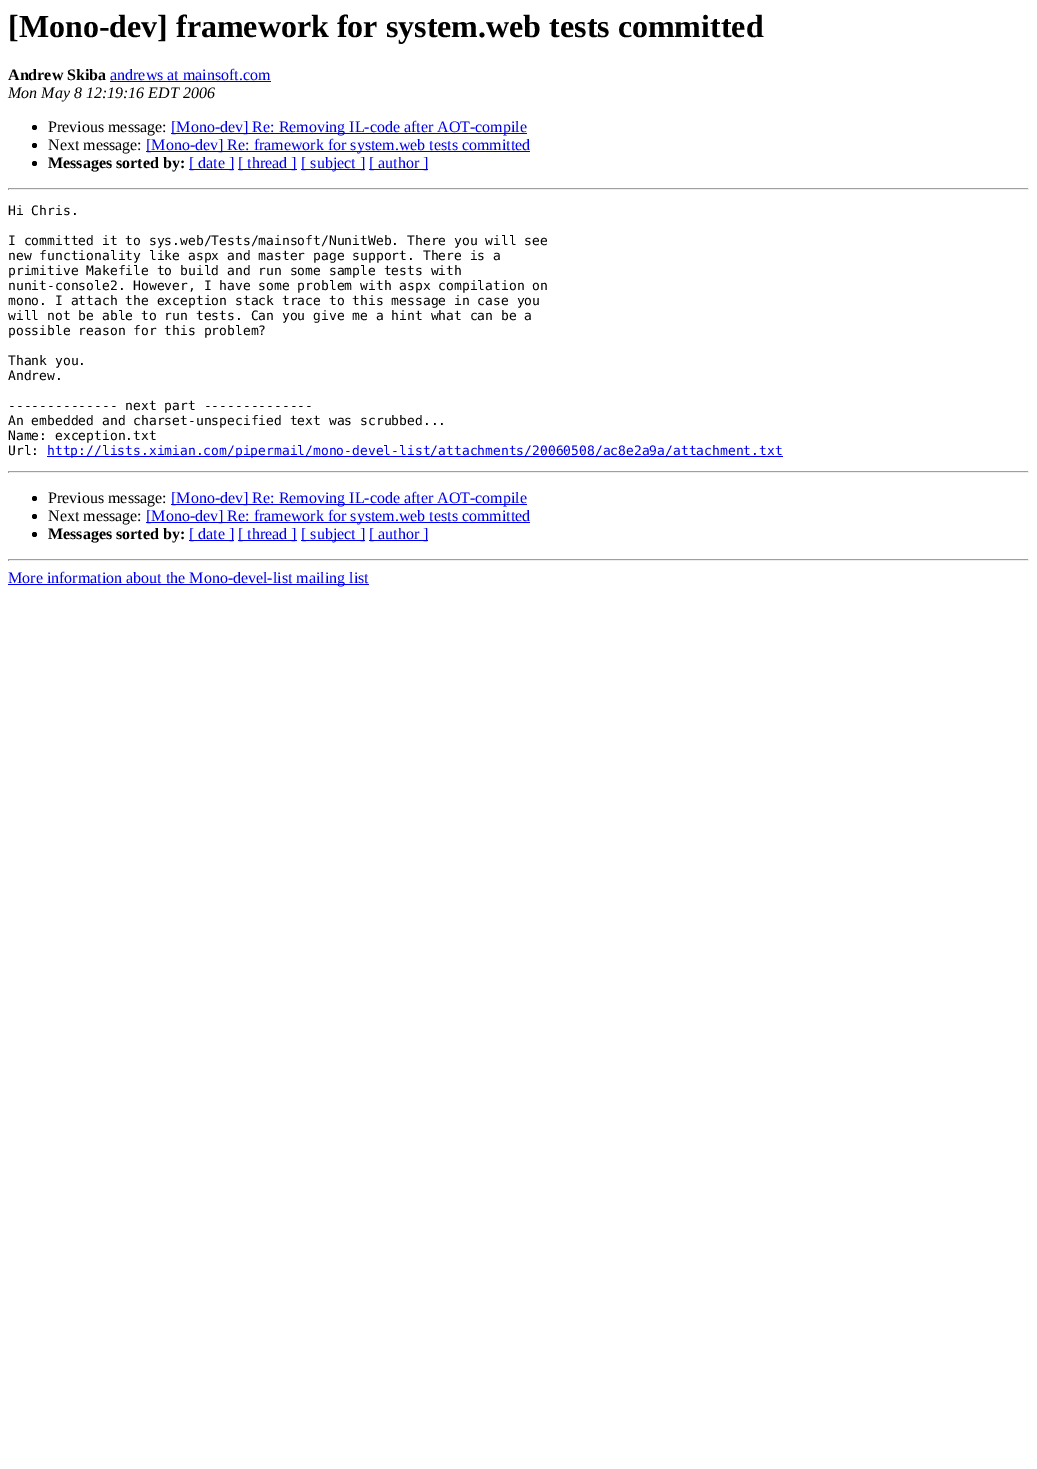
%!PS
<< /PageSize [1037 1469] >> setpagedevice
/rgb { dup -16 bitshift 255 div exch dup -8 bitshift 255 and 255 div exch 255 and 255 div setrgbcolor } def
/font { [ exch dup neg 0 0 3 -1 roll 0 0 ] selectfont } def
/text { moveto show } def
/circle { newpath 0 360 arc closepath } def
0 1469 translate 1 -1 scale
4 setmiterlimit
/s1 { /LiberationSerif-Bold 32 font 16#000000 rgb } def
/s2 { /LiberationSerif-Bold 16 font 16#000000 rgb } def
/s3 { /LiberationSerif-Regular 16 font 16#0000EE rgb } def
/s4 { /LiberationSerif-Italic 16 font 16#000000 rgb } def
/s5 { /LiberationSerif-Regular 16 font 16#000000 rgb } def
/s6 { /DejaVuSansMono-Regular 13 font 16#000000 rgb } def
/s7 { /DejaVuSansMono-Regular 13 font 16#0000EE rgb } def
16#FFFFFF rgb
0 0 1037 1469 rectfill
s1
([Mono-dev] framework for system.web tests committed) 8 37 text
s2
(Andrew Skiba) 8 80 text
s3
(andrews at mainsoft.com) 110 80 text
110 81 161 1 rectfill
s4
(Mon May 8 12:19:16 EDT 2006) 8 98 text
34.5 127.5 2.5 circle fill
s5
(Previous message:) 48 132 text
16#0000EE rgb
171 133 356 1 rectfill
([Mono-dev] Re: Removing IL-code after AOT-compile) 171 132 text
16#000000 rgb
34.5 145.5 2.5 circle fill
(Next message:) 48 150 text
16#0000EE rgb
146 151 384 1 rectfill
([Mono-dev] Re: framework for system.web tests committed) 146 150 text
16#000000 rgb
34.5 163.5 2.5 circle fill
s2
(Messages sorted by:) 48 168 text
16#0000EE rgb
189 169 45 1 rectfill
s3
([ date ]) 189 168 text
238 169 59 1 rectfill
([ thread ]) 238 168 text
301 169 64 1 rectfill
([ subject ]) 301 168 text
369 169 59 1 rectfill
([ author ]) 369 168 text
16#9F9F9F rgb
8 188 1021 1 rectfill
16#EEEEEE rgb
1028 188 1 2 rectfill
8 189 1021 1 rectfill
16#9F9F9F rgb
8 188 1 2 rectfill
s6
(Hi Chris.) 8 215 text
(I committed it to sys.web/Tests/mainsoft/NunitWeb. There you will see) 8 245 text
(new functionality like aspx and master page support. There is a) 8 260 text
(primitive Makefile to build and run some sample tests with) 8 275 text
(nunit-console2. However, I have some problem with aspx compilation on) 8 290 text
(mono. I attach the exception stack trace to this message in case you) 8 305 text
(will not be able to run tests. Can you give me a hint what can be a) 8 320 text
(possible reason for this problem?) 8 335 text
(Thank you.) 8 365 text
(Andrew.) 8 380 text
(-------------- next part --------------) 8 410 text
(An embedded and charset-unspecified text was scrubbed...) 8 425 text
(Name: exception.txt) 8 440 text
(Url:) 8 455 text
16#0000EE rgb
47 456 736 1 rectfill
(http://lists.ximian.com/pipermail/mono-devel-list/attachments/20060508/ac8e2a9a/attachment.txt) 47 455 text
16#9F9F9F rgb
8 471 1021 1 rectfill
16#EEEEEE rgb
1028 471 1 2 rectfill
8 472 1021 1 rectfill
16#9F9F9F rgb
8 471 1 2 rectfill
16#000000 rgb
34.5 498.5 2.5 circle fill
s5
(Previous message:) 48 503 text
16#0000EE rgb
171 504 356 1 rectfill
([Mono-dev] Re: Removing IL-code after AOT-compile) 171 503 text
16#000000 rgb
34.5 516.5 2.5 circle fill
(Next message:) 48 521 text
16#0000EE rgb
146 522 384 1 rectfill
([Mono-dev] Re: framework for system.web tests committed) 146 521 text
16#000000 rgb
34.5 534.5 2.5 circle fill
s2
(Messages sorted by:) 48 539 text
16#0000EE rgb
189 540 45 1 rectfill
s3
([ date ]) 189 539 text
238 540 59 1 rectfill
([ thread ]) 238 539 text
301 540 64 1 rectfill
([ subject ]) 301 539 text
369 540 59 1 rectfill
([ author ]) 369 539 text
16#9F9F9F rgb
8 559 1021 1 rectfill
16#EEEEEE rgb
1028 559 1 2 rectfill
8 560 1021 1 rectfill
16#9F9F9F rgb
8 559 1 2 rectfill
16#0000EE rgb
8 584 361 1 rectfill
(More information about the Mono-devel-list mailing list) 8 583 text
showpage
